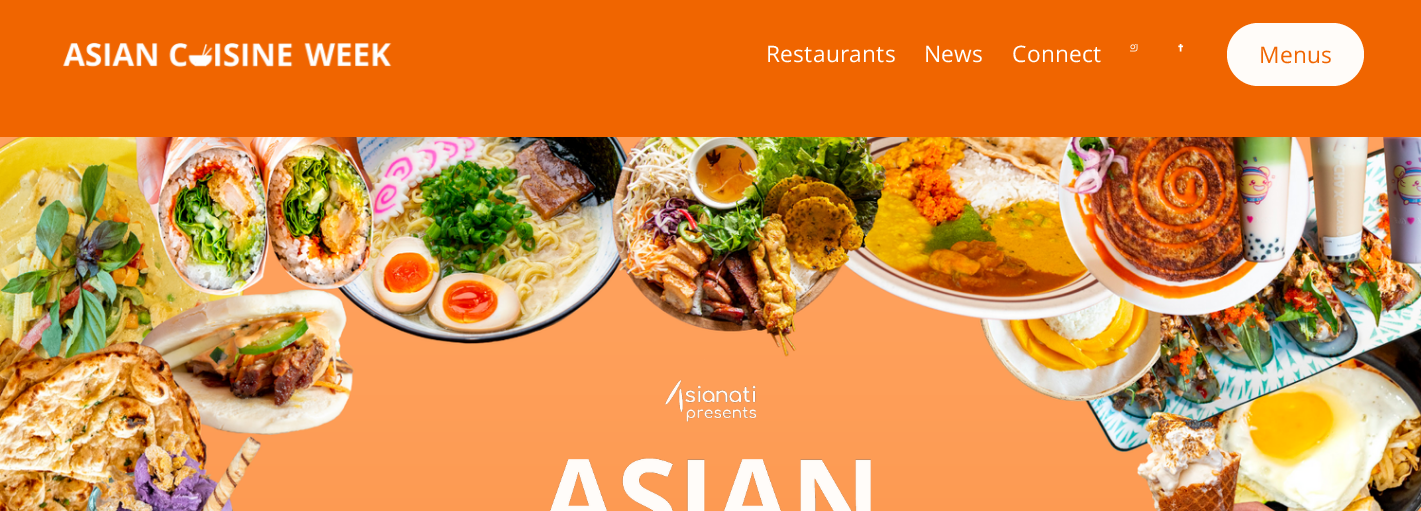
%!PS
<< /PageSize [1421 511] >> setpagedevice
/rgb { dup -16 bitshift 255 div exch dup -8 bitshift 255 and 255 div exch 255 and 255 div setrgbcolor } def
/font { [ exch dup neg 0 0 3 -1 roll 0 0 ] selectfont } def
/roundrect { 5 dict begin { /r /h /w /y /x } { exch def } forall
  x r add y moveto x w add y 2 copy h add r arct x w add y h add x 1 index r arct
  x y h add x y r arct x y 2 copy exch w add exch r arct closepath end } def
/picture { 5 dict begin { /h /w /y /x /name } { exch def } forall
  gsave x y translate w h scale
  w h 8 [w 0 0 h 0 0] name (r) file false 3 colorimage grestore end } def
0 511 translate 1 -1 scale
4 setmiterlimit
16#F06500 rgb
0 0 1421 511 rectfill
(pic1.raw) 63 42 329 25 picture
/OpenSans-Regular 22.75 font
16#FFFFFF rgb
766 62 moveto 0.25 0 (Restaurants) ashow
924 62 moveto 0.25 0 (News) ashow
1012 62 moveto 0.25 0 (Connect) ashow
(pic2.raw) 1130 44 8 8 picture
(pic3.raw) 1178 44 6 8 picture
16#FFFCF9 rgb
1227 23 137 63 31.5 roundrect fill
16#F06500 rgb
1259 63 moveto 0.25 0 (Menus) ashow
(pic4.raw) 0 137 1421 374 picture
(pic5.raw) 550 379 321 132 picture
showpage
